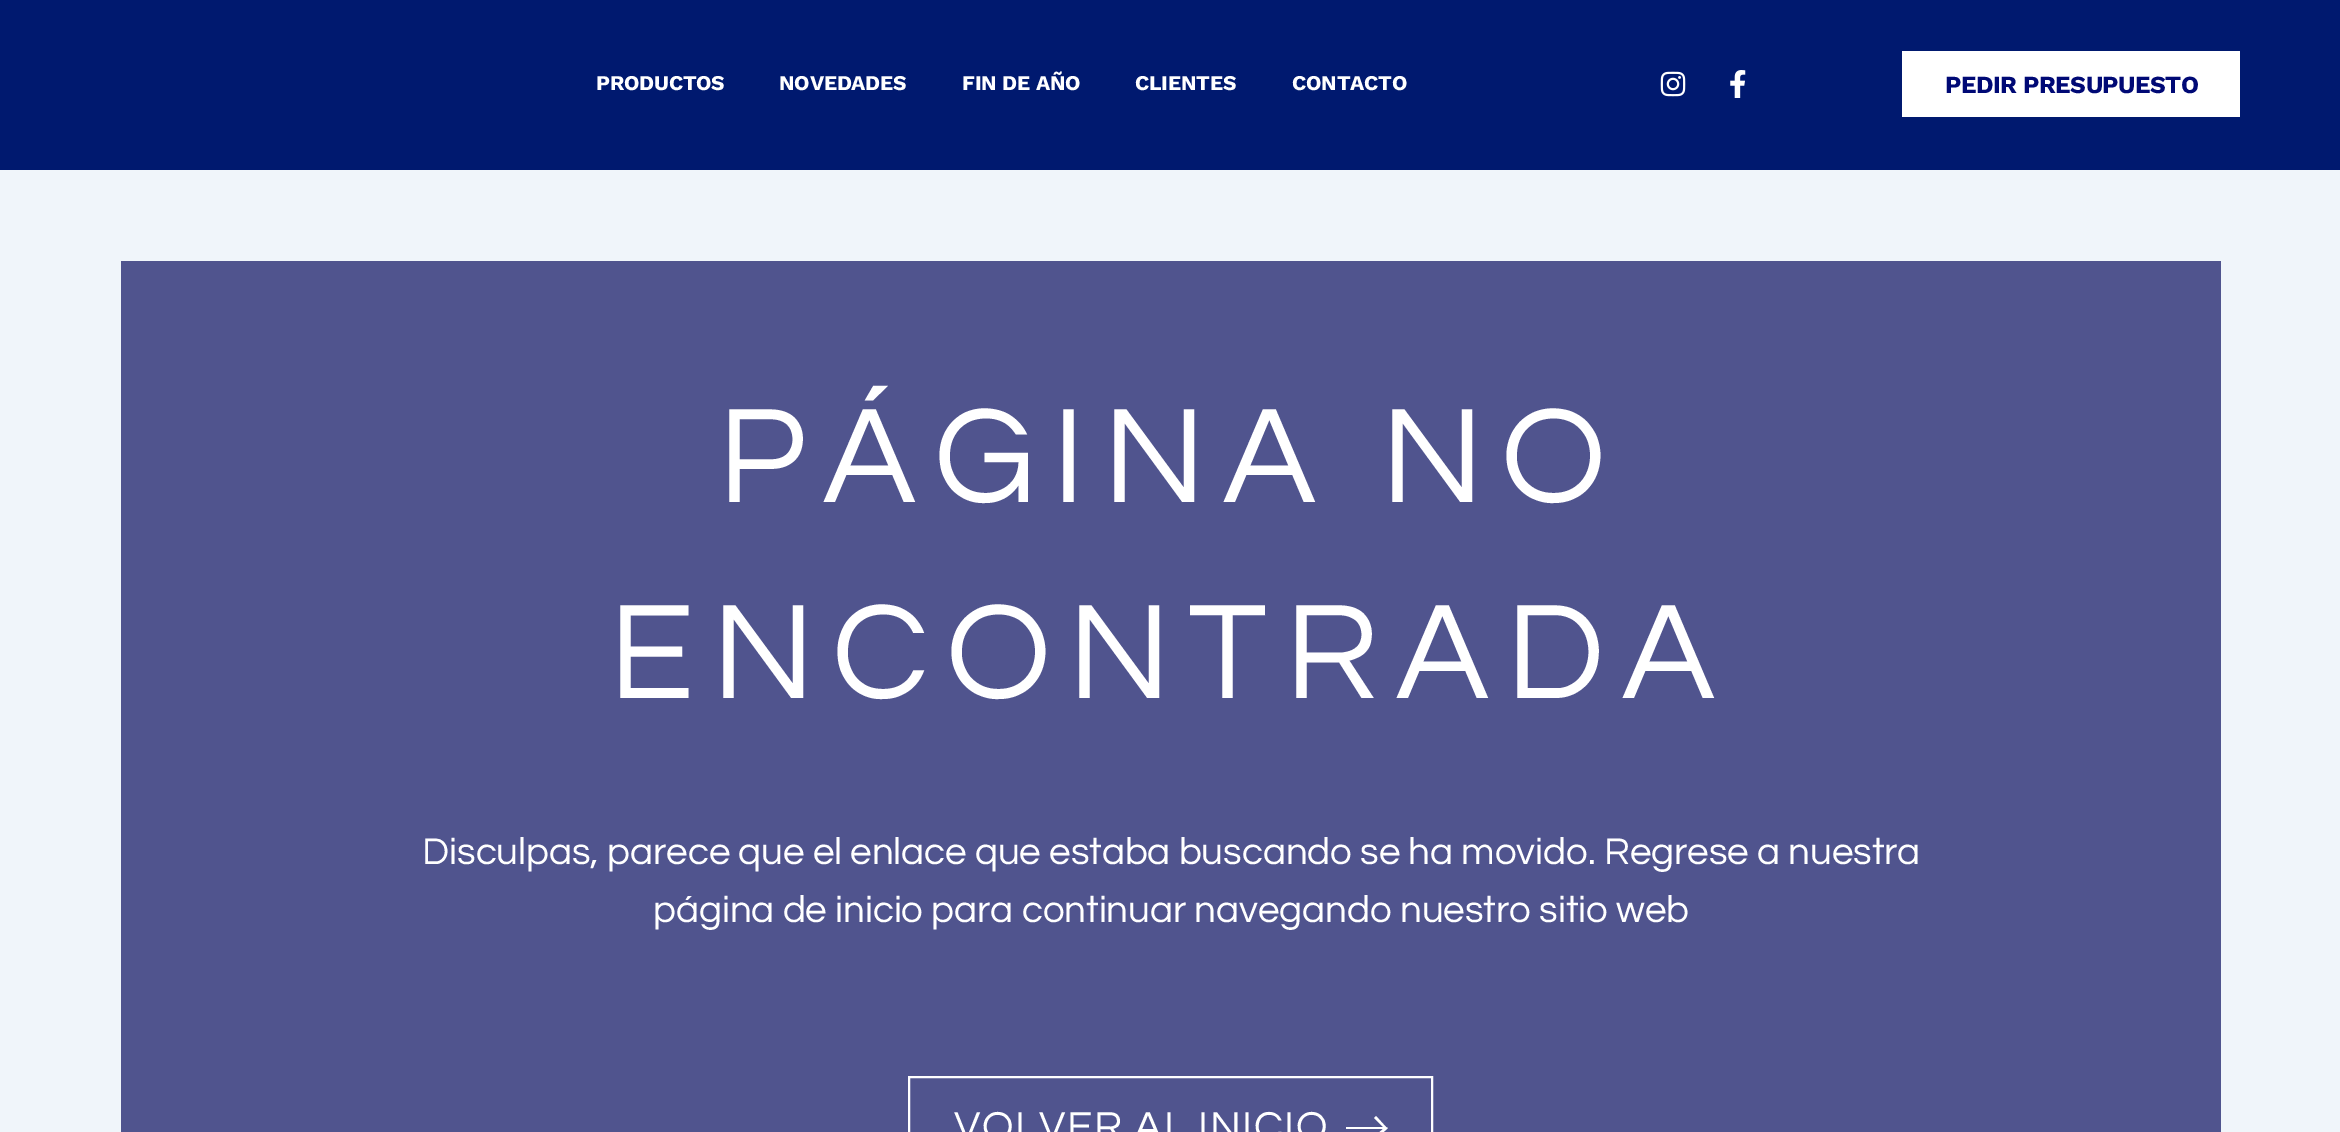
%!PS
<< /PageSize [2340 1132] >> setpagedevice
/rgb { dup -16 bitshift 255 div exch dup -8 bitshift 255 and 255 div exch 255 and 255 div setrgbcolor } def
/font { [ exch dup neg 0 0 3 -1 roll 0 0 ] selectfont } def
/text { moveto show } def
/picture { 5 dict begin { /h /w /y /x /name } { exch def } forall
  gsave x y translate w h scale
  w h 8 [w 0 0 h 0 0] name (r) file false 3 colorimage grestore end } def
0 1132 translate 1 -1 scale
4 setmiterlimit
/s1 { /Questrial-Regular 38.5 font 16#FFFFFF rgb } def
16#F0F5FA rgb
0 0 2340 1132 rectfill
16#00196F rgb
0 0 2340 170 rectfill
/WorkSans-Bold 21 font
16#FFFFFF rgb
596 90 moveto -0.25 0 (PRODUCTOS) ashow
779 90 moveto -0.25 0 (NOVEDADES) ashow
962 90 moveto -0.25 0 (FIN DE AÑO) ashow
1135 90 moveto -0.25 0 (CLIENTES) ashow
1292 90 moveto -0.25 0 (CONTACTO) ashow
(pic1.raw) 1660 71 26 26 picture
(pic2.raw) 1730 70 16 28 picture
1902 51 338 66 rectfill
/WorkSans-Bold 24.5 font
16#000975 rgb
1945 93 moveto -0.5 0 (PEDIR PRESUPUESTO) ashow
16#50548E rgb
121 261 2100 871 rectfill
/Questrial-Regular 140 font
16#FFFFFF rgb
718 502 moveto 17.5 0 (PÁGINA NO) ashow
609 698 moveto 17.5 0 (ENCONTRADA) ashow
s1
(Disculpas, parece que el enlace que estaba buscando se ha movido. Regrese a nuestra) 422 864 text
(página de inicio para continuar navegando nuestro sitio web) 653 922 text
2 setlinewidth
909 1077 523 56 rectstroke
/Questrial-Regular 42 font
954 1140 moveto 1.6 0 (VOLVER AL INICIO) ashow
1386 1127 moveto 1376 1116 lineto 1374 1118 lineto 1383 1127 lineto 1346 1127 lineto 1346 1129 lineto 1383 1129 lineto 1374 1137 lineto 1376 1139 lineto 1388 1128 lineto closepath fill
showpage
